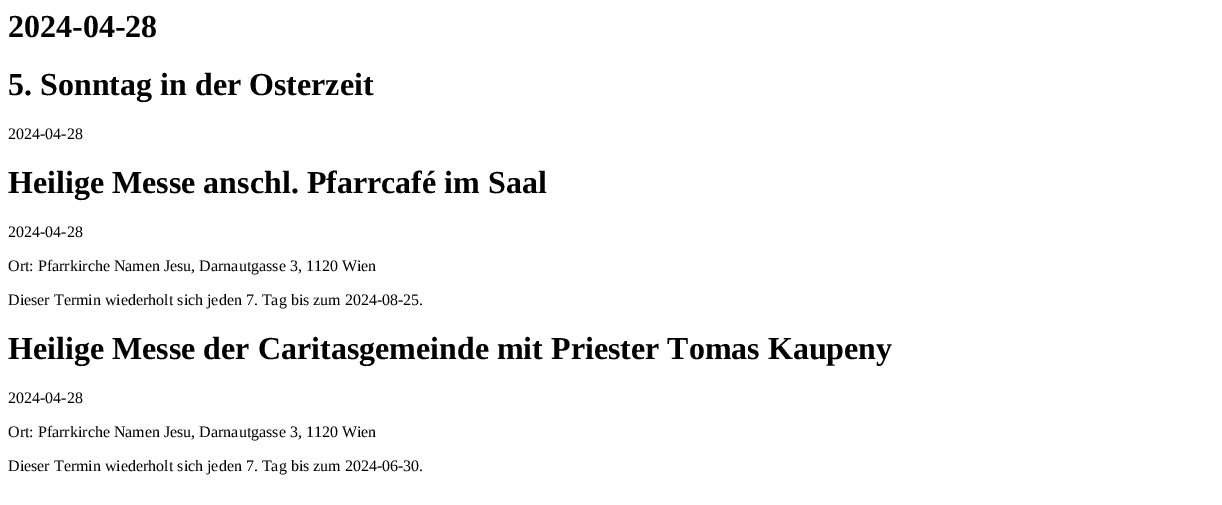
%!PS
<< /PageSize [1222 505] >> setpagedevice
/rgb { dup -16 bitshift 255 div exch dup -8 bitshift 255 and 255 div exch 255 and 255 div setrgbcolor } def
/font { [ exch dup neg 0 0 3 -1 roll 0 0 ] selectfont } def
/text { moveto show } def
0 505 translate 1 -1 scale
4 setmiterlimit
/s1 { /LiberationSerif-Bold 32 font 16#000000 rgb } def
/s2 { /LiberationSerif-Regular 16 font 16#000000 rgb } def
16#FFFFFF rgb
0 0 1222 505 rectfill
s1
(2024-04-28) 8 37 text
(5. Sonntag in der Osterzeit) 8 95 text
s2
(2024-04-28) 8 139 text
s1
(Heilige Messe anschl. Pfarrcafé im Saal) 8 193 text
s2
(2024-04-28) 8 237 text
(Ort: Pfarrkirche Namen Jesu, Darnautgasse 3, 1120 Wien) 8 271 text
(Dieser Termin wiederholt sich jeden 7. Tag bis zum 2024-08-25.) 8 305 text
s1
(Heilige Messe der Caritasgemeinde mit Priester Tomas Kaupeny) 8 359 text
s2
(2024-04-28) 8 403 text
(Ort: Pfarrkirche Namen Jesu, Darnautgasse 3, 1120 Wien) 8 437 text
(Dieser Termin wiederholt sich jeden 7. Tag bis zum 2024-06-30.) 8 471 text
showpage
